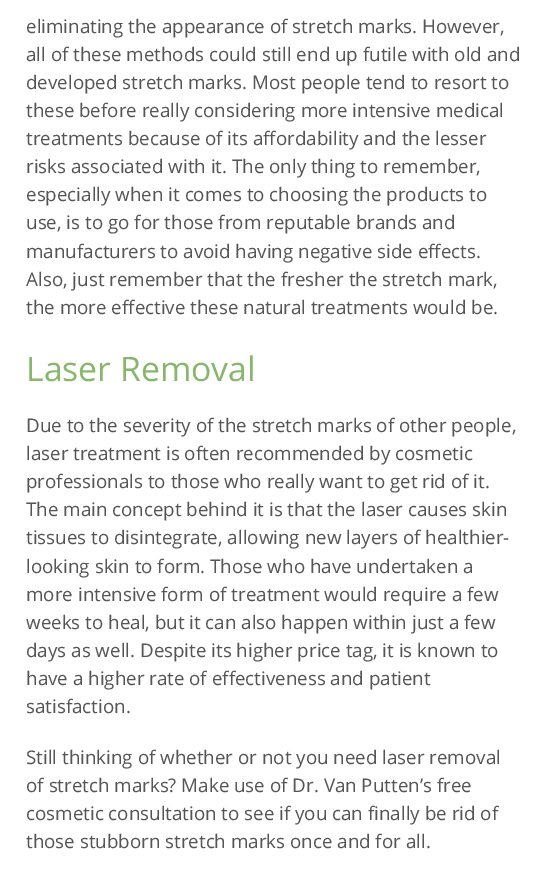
%!PS
<< /PageSize [548 881] >> setpagedevice
/rgb { dup -16 bitshift 255 div exch dup -8 bitshift 255 and 255 div exch 255 and 255 div setrgbcolor } def
/font { [ exch dup neg 0 0 3 -1 roll 0 0 ] selectfont } def
/text { moveto show } def
0 881 translate 1 -1 scale
4 setmiterlimit
/s1 { /OpenSans-Regular 18.75 font 16#555555 rgb } def
/s2 { /OpenSans-Regular 33.75 font 16#86B76B rgb } def
16#FFFFFF rgb
0 0 548 881 rectfill
s1
(eliminating the appearance of stretch marks. However,) 26 33 text
(all of these methods could still end up futile with old and) 26 61 text
(developed stretch marks. Most people tend to resort to) 26 89 text
(these before really considering more intensive medical) 26 117 text
(treatments because of its affordability and the lesser) 26 145 text
(risks associated with it. The only thing to remember,) 26 173 text
(especially when it comes to choosing the products to) 26 201 text
(use, is to go for those from reputable brands and) 26 229 text
(manufacturers to avoid having negative side effects.) 26 258 text
(Also, just remember that the fresher the stretch mark,) 26 286 text
(the more effective these natural treatments would be.) 26 314 text
s2
(Laser Removal) 26 381 text
s1
(Due to the severity of the stretch marks of other people,) 26 432 text
(laser treatment is often recommended by cosmetic) 26 460 text
(professionals to those who really want to get rid of it.) 26 488 text
(The main concept behind it is that the laser causes skin) 26 516 text
(tissues to disintegrate, allowing new layers of healthier-) 26 544 text
(looking skin to form. Those who have undertaken a) 26 573 text
(more intensive form of treatment would require a few) 26 601 text
(weeks to heal, but it can also happen within just a few) 26 629 text
(days as well. Despite its higher price tag, it is known to) 26 657 text
(have a higher rate of effectiveness and patient) 26 685 text
(satisfaction.) 26 713 text
(Still thinking of whether or not you need laser removal) 26 764 text
(of stretch marks? Make use of Dr. Van Putten’s free) 26 792 text
(cosmetic consultation to see if you can finally be rid of) 26 820 text
(those stubborn stretch marks once and for all.) 26 848 text
showpage
